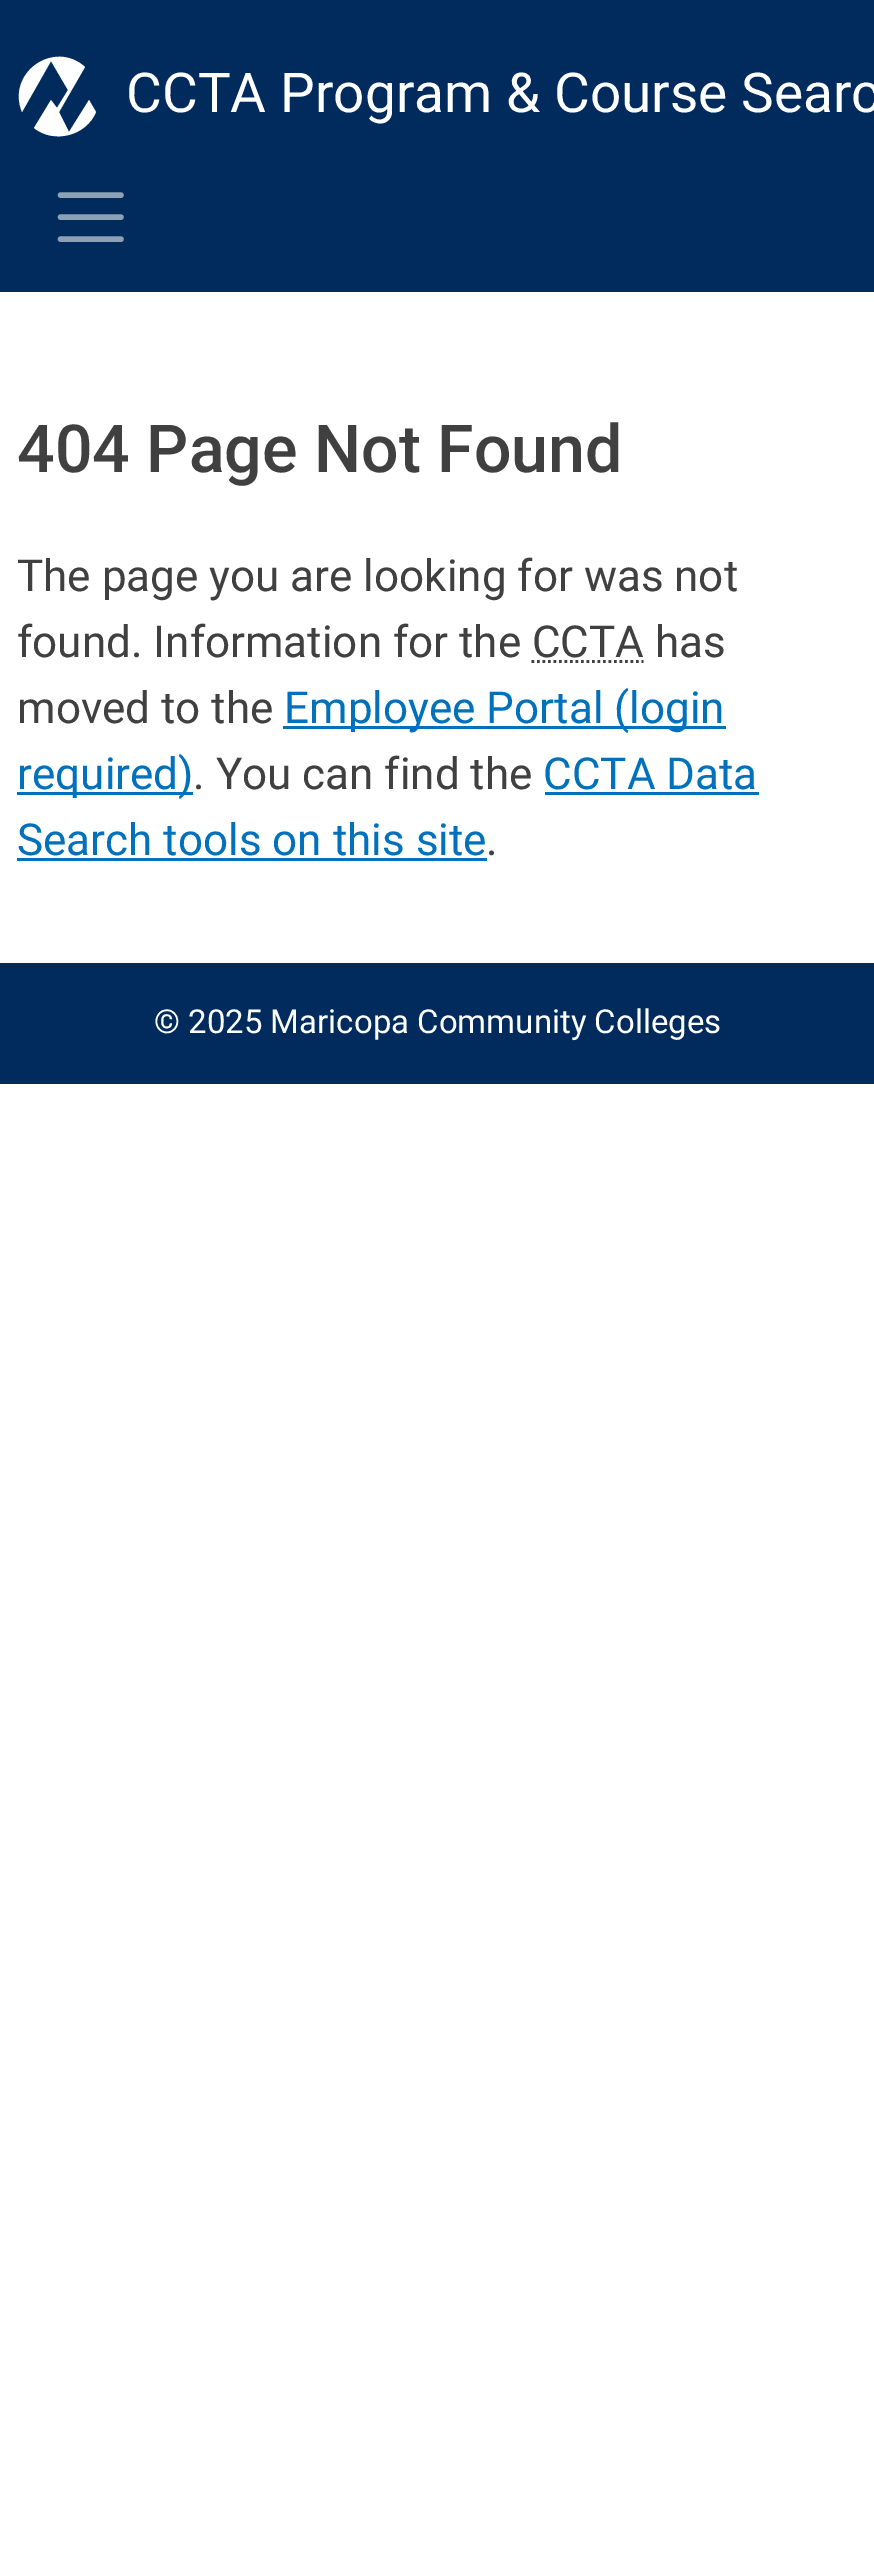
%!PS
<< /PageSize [874 2564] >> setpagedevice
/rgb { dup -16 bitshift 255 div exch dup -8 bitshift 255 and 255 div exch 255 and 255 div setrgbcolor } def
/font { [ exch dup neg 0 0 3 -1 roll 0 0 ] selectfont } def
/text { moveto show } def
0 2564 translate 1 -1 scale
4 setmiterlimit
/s1 { /Roboto-Regular 55 font 16#FFFFFF rgb } def
/s2 { /Roboto-Medium 66.25 font 16#404040 rgb } def
/s3 { /Roboto-Regular 44 font 16#404040 rgb } def
/s4 { /Roboto-Regular 44 font 16#0171BC rgb } def
/s5 { /Roboto-Regular 33 font 16#FFFFFF rgb } def
16#FFFFFF rgb
0 0 874 2564 rectfill
16#002B5C rgb
0 0 874 292 rectfill
16#FFFFFF rgb
89 100 moveto 69 132 lineto 59 112 lineto 85 67 lineto 54 39 6 73 22 112 curveto 51 61 lineto 68 90 lineto 57 108 lineto 51 100 lineto 34 128 lineto 54 144 86 136 96 112 curveto closepath fill
s1
(CCTA Program & Course Searc) 126 112 text
16#8CA0B6 rgb
5.5 setlinewidth
1 setlinecap
60.5 195 moveto 121 195 lineto 60.5 217 moveto 121 217 lineto 60.5 239 moveto 121 239 lineto stroke
s2
(404 Page Not Found) 17 472 text
s3
(The page you are looking for was not) 17 591 text
(found. Information for the CCTA has) 17 657 text
2.8 setlinewidth
0 setlinecap
[2.75 2.75] 0 setdash
531.5 661.5 moveto 643.5 661.5 lineto stroke
(moved to the) 17 723 text
16#0171BC rgb
283 726 443 3 rectfill
(Employee Portal \(login) 284 723 text
17 792 176 3 rectfill
(required\)) 17 789 text
s3
(. You can find the) 193 789 text
s4
(CCTA Data) 543 789 text
545 792 214 3 rectfill
(Search tools on this site) 17 855 text
17 858 470 3 rectfill
s3
(.) 486 855 text
16#002B5C rgb
0 963 874 121 rectfill
s5
(© 2025 Maricopa Community Colleges) 154 1033 text
showpage
